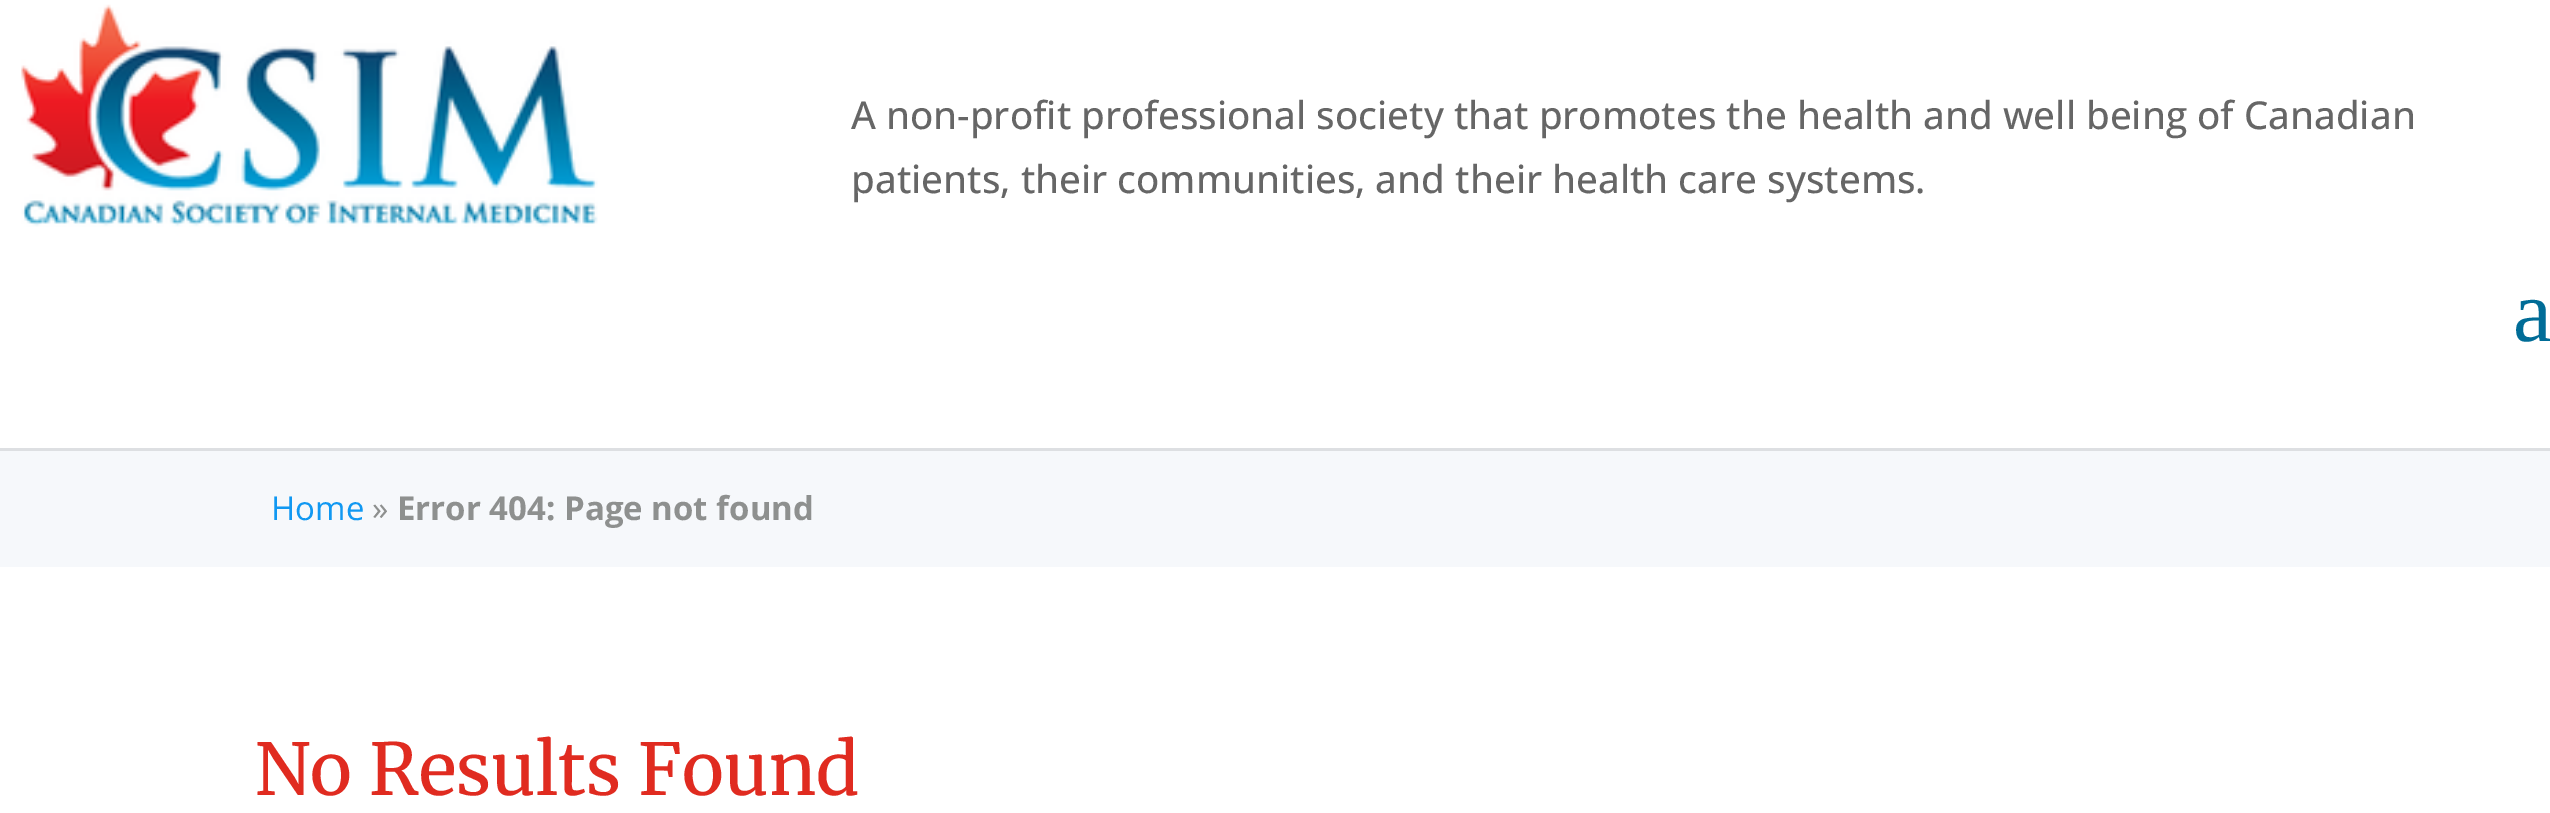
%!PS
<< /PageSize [2550 813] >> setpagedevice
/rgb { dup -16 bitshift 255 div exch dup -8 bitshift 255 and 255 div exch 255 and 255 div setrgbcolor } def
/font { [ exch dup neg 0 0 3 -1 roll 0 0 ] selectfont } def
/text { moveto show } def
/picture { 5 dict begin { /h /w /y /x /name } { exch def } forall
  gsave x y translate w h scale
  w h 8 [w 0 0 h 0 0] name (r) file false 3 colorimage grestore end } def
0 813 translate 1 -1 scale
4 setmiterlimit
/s1 { /OpenSans-Medium 38.5 font 16#666666 rgb } def
/s2 { /LiberationSerif-Regular 88 font 16#006C97 rgb } def
/s3 { /OpenSans-Regular 33 font 16#1098F2 rgb } def
/s4 { /OpenSans-Regular 33 font 16#8E908F rgb } def
/s5 { /OpenSans-Bold 33 font 16#8E908F rgb } def
/s6 { /Merriweather-Regular 71.5 font 16#E02B20 rgb } def
16#FFFFFF rgb
0 0 2550 813 rectfill
16#DDDFE2 rgb
0 448 2550 3 rectfill
(pic1.raw) 21 4 577 223 picture
s1
(A non-profit professional society that promotes the health and well being of Canadian) 851 129 text
(patients, their communities, and their health care systems.) 851 193 text
s2
(a) 2513 341 text
16#F6F8FB rgb
0 451 2550 116 rectfill
s3
(Home) 271 520 text
s4
(») 372 520 text
s5
(Error 404: Page not found) 397 520 text
s6
(No Results Found) 255 795 text
showpage
